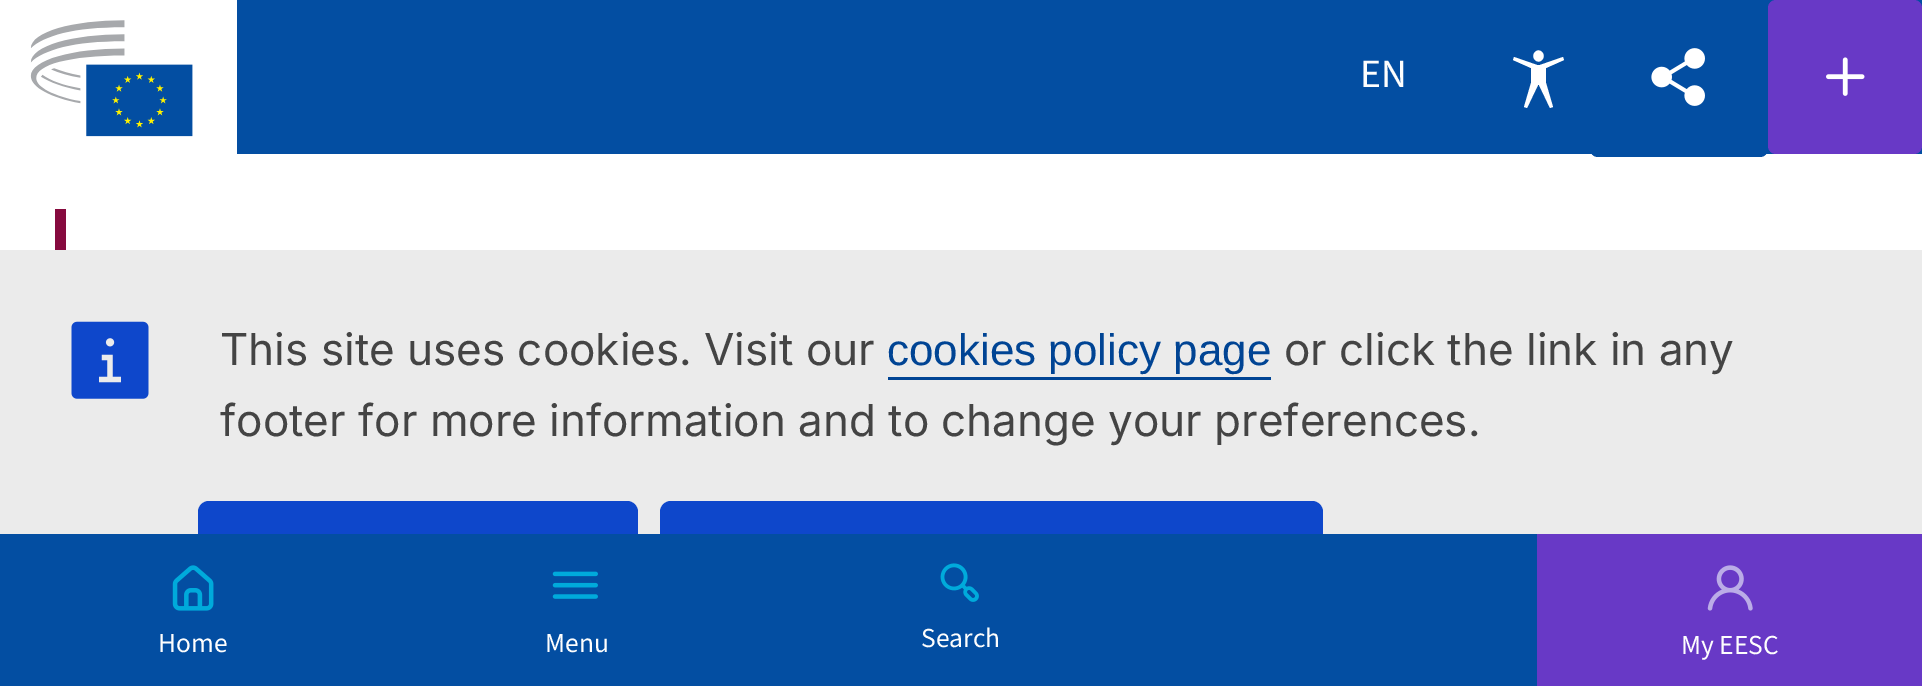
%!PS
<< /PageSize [1922 686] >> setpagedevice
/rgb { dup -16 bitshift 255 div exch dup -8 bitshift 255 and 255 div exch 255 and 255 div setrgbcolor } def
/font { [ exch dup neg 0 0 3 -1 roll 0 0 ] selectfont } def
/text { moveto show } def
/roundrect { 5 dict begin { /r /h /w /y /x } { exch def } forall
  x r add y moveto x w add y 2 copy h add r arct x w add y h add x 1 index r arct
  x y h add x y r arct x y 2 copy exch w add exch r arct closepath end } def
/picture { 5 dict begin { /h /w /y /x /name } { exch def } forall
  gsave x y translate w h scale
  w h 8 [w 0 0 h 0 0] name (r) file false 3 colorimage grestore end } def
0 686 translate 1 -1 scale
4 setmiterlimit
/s1 { /SourceSans3-Regular 40 font 16#FEFEFE rgb } def
/s2 { /SourceSans3-Regular 27.5 font 16#FEFEFE rgb } def
/s3 { /Inter-Regular 44 font 16#444444 rgb } def
/s4 { /LiberationSans-Regular 44 font 16#004494 rgb } def
16#FFFFFF rgb
0 0 1922 686 rectfill
(pic1.raw) 30 20 163 117 picture
16#034EA2 rgb
237 0 1685 154 rectfill
1590 0 178 157 8 roundrect fill
(pic2.raw) 1651 48 54 58 picture
16#6839C6 rgb
1768 0 154 154 8 roundrect fill
(pic3.raw) 1826 57 39 39 picture
16#860A3E rgb
55 209 11 41 rectfill
16#EBEBEB rgb
0 250 1922 284 rectfill
16#0E47CB rgb
198 501 440 121 11 roundrect fill
660 501 663 121 11 roundrect fill
16#034EA2 rgb
0 534 1537 152 rectfill
s1
(EN) 1360 87 text
16#FFFFFF rgb
1535 52 moveto 1530 57 1537 65 1542 60 curveto 1547 55 1540 47 1535 52 curveto closepath 1564 60 moveto 1546 68 lineto 1546 83 lineto 1553 107 lineto 1550 108 lineto 1539 85 lineto 1538 85 lineto 1527 108 lineto 1524 107 lineto 1531 83 lineto 1531 68 lineto 1513 60 lineto 1514 57 lineto 1537 65 lineto 1540 65 lineto 1563 57 lineto closepath fill
(pic4.raw) 172 565 42 46 picture
s2
(Home) 158 652 text
(pic5.raw) 552 571 46 28 picture
(Menu) 545 652 text
(pic6.raw) 940 563 39 39 picture
(Search) 921 647 text
16#6839C6 rgb
1537 534 385 152 rectfill
(pic7.raw) 1707 565 46 46 picture
s2
(My EESC) 1681 654 text
(pic8.raw) 71 321 78 78 picture
s3
(This site uses cookies. Visit our) 220 365 text
s4
(cookies policy page) 887 365 text
888 377 383 3 rectfill
s3
(or click the link in any) 1284 365 text
(footer for more information and to change your preferences.) 220 436 text
showpage
